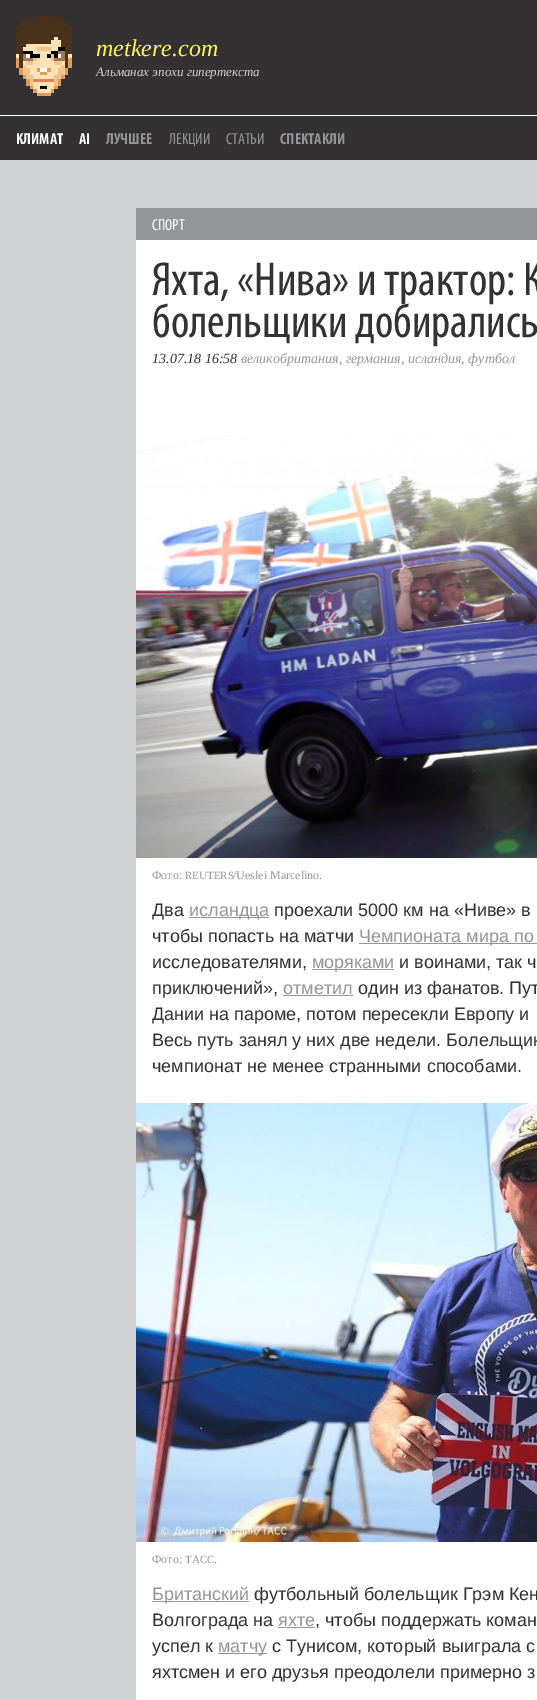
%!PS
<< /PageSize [537 1700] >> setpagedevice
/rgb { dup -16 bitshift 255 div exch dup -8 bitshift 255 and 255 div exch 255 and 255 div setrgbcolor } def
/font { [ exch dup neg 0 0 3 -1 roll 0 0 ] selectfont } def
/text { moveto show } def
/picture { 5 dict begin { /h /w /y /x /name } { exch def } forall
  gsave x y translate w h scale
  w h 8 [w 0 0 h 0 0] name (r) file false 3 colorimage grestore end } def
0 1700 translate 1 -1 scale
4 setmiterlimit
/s1 { /LiberationSerif-Italic 24 font 16#FFF45F rgb } def
/s2 { /LiberationSerif-Italic 13 font 16#D1D3D4 rgb } def
/s3 { /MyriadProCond-Bold 16 font 16#FFFFFF rgb } def
/s4 { /MyriadProCond-Bold 16 font 16#939598 rgb } def
/s5 { /MyriadProCond-Regular 16 font 16#939598 rgb } def
/s6 { /MyriadProCond-Regular 16 font 16#FFFFFF rgb } def
/s7 { /MyriadProCond-Regular 48 font 16#333132 rgb } def
/s8 { /LiberationSerif-Italic 14 font 16#333132 rgb } def
/s9 { /LiberationSerif-Italic 14 font 16#939598 rgb } def
/s10 { /LiberationSerif-Regular 12 font 16#939598 rgb } def
/s11 { /LiberationSerif-Regular 11 font 16#939598 rgb } def
/s12 { /LiberationSans-Regular 18 font 16#333132 rgb } def
/s13 { /LiberationSans-Regular 18 font 16#939598 rgb } def
16#D1D3D4 rgb
0 0 537 1700 rectfill
16#333132 rgb
0 0 537 160 rectfill
(pic1.raw) 16 16 56 80 picture
s1
(metkere.com) 96 56 text
s2
(Альманах эпохи гипертекста) 96 76 text
16#FFFFFF rgb
0 115 537 1 rectfill
s3
(КЛИМАТ) 16 144 text
(AI) 79 144 text
s4
(ЛУЧШЕЕ) 106 144 text
s5
(ЛЕКЦИИ) 169 144 text
(СТАТЬИ) 226 144 text
s4
(СПЕКТАКЛИ) 280 144 text
16#FFFFFF rgb
136 240 401 1460 rectfill
16#939598 rgb
136 208 401 32 rectfill
s6
(СПОРТ) 152 230 text
s7
(Яхта, «Нива» и трактор: К) 152 295 text
(болельщики добирались) 152 337 text
s8
(13.07.18 16:58) 152 363 text
s9
(великобритания, германия, исландия, футбол) 241 363 text
(pic2.raw) 136 435 401 423 picture
s10
(Фото:) 152 879 text
s11
(REUTERS) 185 879 text
s10
(/Ueslei Marcelino.) 233 879 text
s12
(Два) 152 916 text
16#939598 rgb
189 917 80 1 rectfill
(исландца) 189 916 text
s12
(проехали 5000 км на «Ниве» в) 274 916 text
(чтобы попасть на матчи) 152 942 text
16#939598 rgb
359 943 178 1 rectfill
(Чемпионата мира по) 359 942 text
s12
(исследователями,) 152 968 text
16#939598 rgb
312 969 82 1 rectfill
(моряками) 312 968 text
s12
(и воинами, так ч) 399 968 text
(приключений»,) 152 994 text
s13
(отметил) 283 994 text
283 995 70 1 rectfill
s12
(один из фанатов. Пут) 358 994 text
(Дании на пароме, потом пересекли Европу и) 152 1020 text
(Весь путь занял у них две недели. Болельщик) 152 1046 text
(чемпионат не менее странными способами.) 152 1072 text
(pic3.raw) 136 1103 401 439 picture
s10
(Фото:) 152 1563 text
s11
(ТАСС) 185 1563 text
s10
(.) 214 1563 text
152 1601 97 1 rectfill
s13
(Британский) 152 1600 text
s12
(футбольный болельщик Грэм Кен) 254 1600 text
(Волгограда на) 152 1626 text
s13
(яхте) 278 1626 text
278 1627 37 1 rectfill
s12
(, чтобы поддержать коман) 315 1626 text
(успел к) 152 1652 text
16#939598 rgb
218 1653 49 1 rectfill
(матчу) 218 1652 text
s12
(с Тунисом, который выиграла с) 272 1652 text
(яхтсмен и его друзья преодолели примерно з) 152 1678 text
showpage
